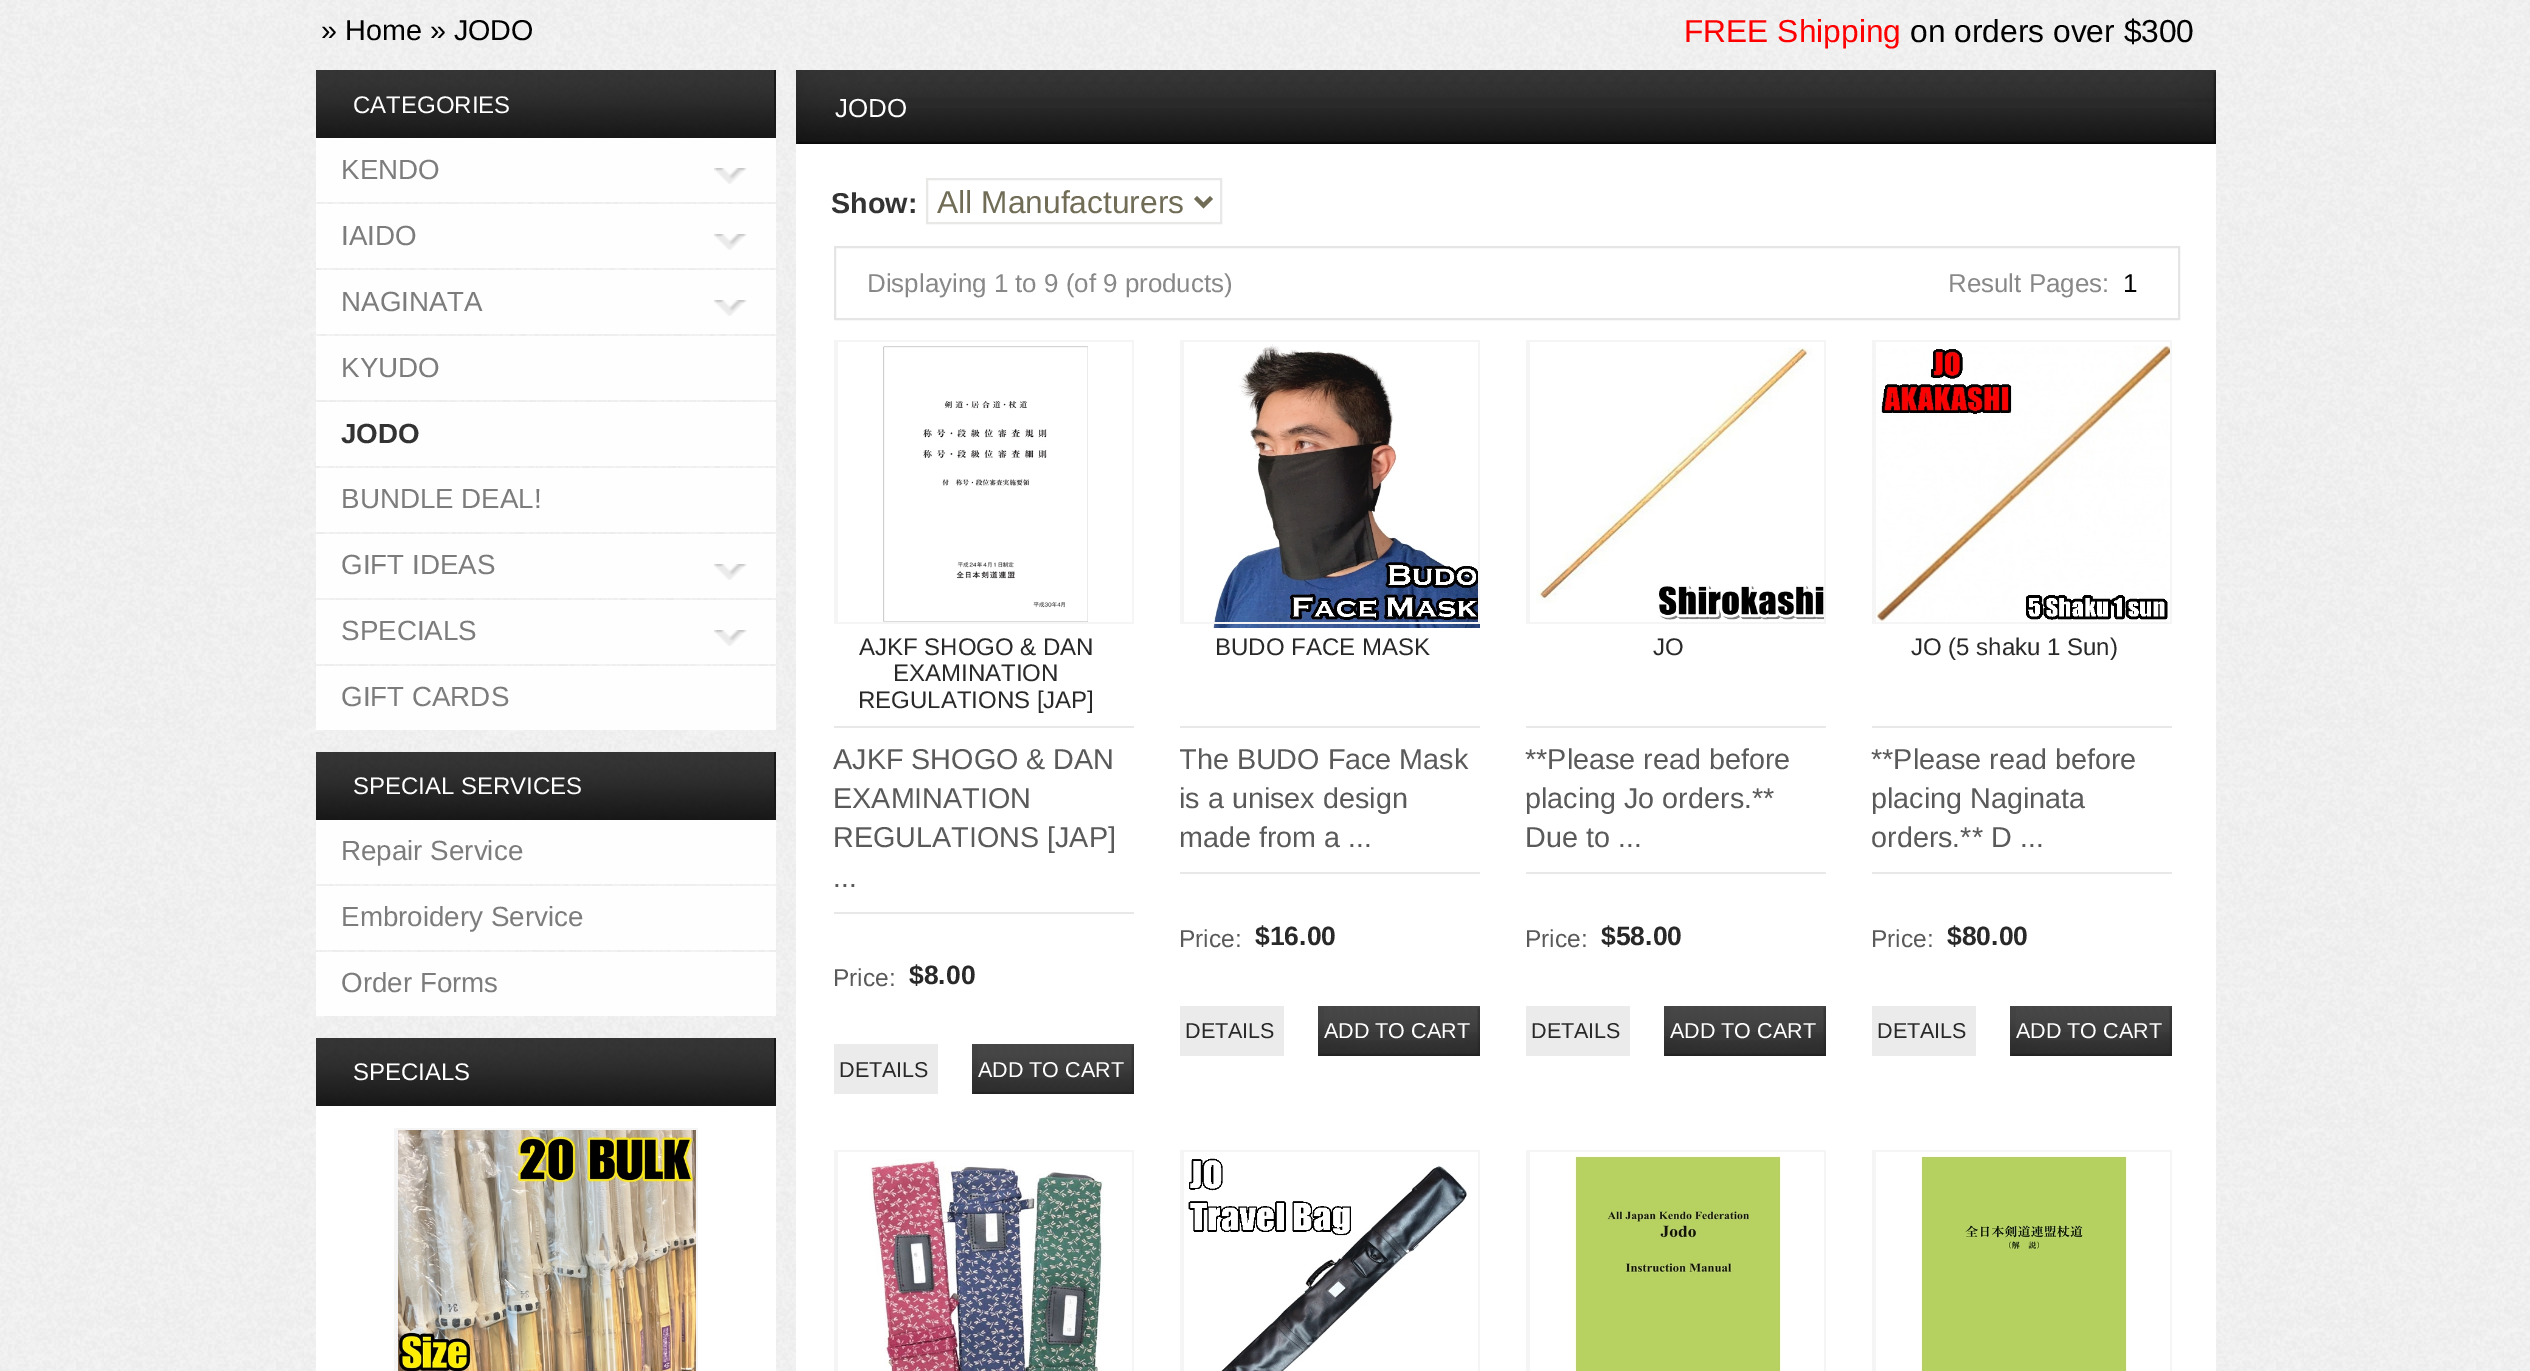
%!PS
<< /PageSize [2530 1371] >> setpagedevice
/rgb { dup -16 bitshift 255 div exch dup -8 bitshift 255 and 255 div exch 255 and 255 div setrgbcolor } def
/font { [ exch dup neg 0 0 3 -1 roll 0 0 ] selectfont } def
/text { moveto show } def
/picture { 5 dict begin { /h /w /y /x /name } { exch def } forall
  gsave x y translate w h scale
  w h 8 [w 0 0 h 0 0] name (r) file false 3 colorimage grestore end } def
0 1371 translate 1 -1 scale
4 setmiterlimit
/s1 { /LiberationSans-Regular 28.75 font 16#000000 rgb } def
/s2 { /LiberationSans-Regular 31.75 font 16#FF0000 rgb } def
/s3 { /LiberationSans-Regular 31.75 font 16#000000 rgb } def
/s4 { /LiberationSans-Regular 24 font 16#FFFFFF rgb } def
/s5 { /LiberationSans-Regular 27.75 font 16#7C7C7C rgb } def
/s6 { /LiberationSans-Bold 27.75 font 16#333333 rgb } def
/s7 { /LiberationSans-Regular 26 font 16#FFFFFF rgb } def
/s8 { /LiberationSans-Bold 28.75 font 16#333333 rgb } def
/s9 { /LiberationSans-Regular 31.75 font 16#706C56 rgb } def
/s10 { /LiberationSans-Regular 25.9 font 16#888888 rgb } def
/s11 { /LiberationSans-Regular 25.9 font 16#000000 rgb } def
/s12 { /LiberationSans-Regular 24 font 16#292929 rgb } def
/s13 { /LiberationSans-Regular 28.75 font 16#5A5A5A rgb } def
/s14 { /LiberationSans-Regular 24.5 font 16#5A5A5A rgb } def
/s15 { /LiberationSans-Bold 26.5 font 16#292929 rgb } def
/s16 { /LiberationSans-Regular 21.5 font 16#292929 rgb } def
/s17 { /LiberationSans-Regular 21.5 font 16#FFFFFF rgb } def
16#FFFFFF rgb
0 0 2530 1371 rectfill
(pic1.raw) 0 0 2530 1371 picture
s1
(» Home » JODO) 321 40 text
s2
(FREE Shipping) 1684 42 text
s3
(on orders over $300) 1910 42 text
(pic2.raw) 316 70 458 68 picture
16#191919 rgb
774 70 2 68 rectfill
s4
(CATEGORIES) 353 113 text
16#FEFEFE rgb
316 138 460 64 rectfill
s5
(KENDO) 341 179 text
(pic3.raw) 714 168 33 16 picture
16#FEFEFE rgb
316 204 460 64 rectfill
s5
(IAIDO) 341 245 text
(pic3.raw) 714 234 33 16 picture
16#FEFEFE rgb
316 270 460 64 rectfill
s5
(NAGINATA) 341 311 text
(pic3.raw) 714 300 33 16 picture
16#FEFEFE rgb
316 336 460 64 rectfill
s5
(KYUDO) 341 377 text
16#FEFEFE rgb
316 402 460 64 rectfill
s6
(JODO) 341 443 text
16#FEFEFE rgb
316 468 460 64 rectfill
s5
(BUNDLE DEAL!) 341 508 text
16#FEFEFE rgb
316 534 460 64 rectfill
s5
(GIFT IDEAS) 341 574 text
(pic3.raw) 714 564 33 16 picture
16#FEFEFE rgb
316 600 460 64 rectfill
s5
(SPECIALS) 341 640 text
(pic3.raw) 714 630 33 16 picture
16#FEFEFE rgb
316 666 460 64 rectfill
s5
(GIFT CARDS) 341 706 text
(pic2.raw) 316 752 458 68 picture
16#191919 rgb
774 752 2 68 rectfill
s4
(SPECIAL SERVICES) 353 794 text
16#FEFEFE rgb
316 820 460 64 rectfill
s5
(Repair Service) 341 860 text
16#FEFEFE rgb
316 886 460 64 rectfill
s5
(Embroidery Service) 341 926 text
16#FEFEFE rgb
316 952 460 64 rectfill
s5
(Order Forms) 341 992 text
16#FFFFFF rgb
316 1106 460 265 rectfill
(pic2.raw) 316 1038 458 68 picture
16#191919 rgb
774 1038 2 68 rectfill
s4
(SPECIALS) 353 1080 text
16#F5F5F5 rgb
394 1128 304 2 rectfill
696 1130 2 241 rectfill
394 1130 4 241 rectfill
(pic4.raw) 398 1130 298 241 picture
16#FFFFFF rgb
796 144 1420 1227 rectfill
16#2A2A2A rgb
862 98 1314 10 rectfill
(pic5.raw) 862 70 1314 28 picture
(pic6.raw) 2176 98 40 10 picture
(pic7.raw) 862 108 1354 36 picture
(pic8.raw) 796 100 66 6 picture
(pic9.raw) 796 70 66 30 picture
(pic10.raw) 2176 70 40 28 picture
(pic11.raw) 796 106 66 38 picture
(pic12.raw) 2213 108 3 34 picture
s7
(JODO) 835 117 text
s8
(Show:) 831 213 text
16#E8E8E7 rgb
2 setlinewidth
927 179 294 44 rectstroke
16#706C56 rgb
4 setlinewidth
1195.5 197.5 moveto 1203.5 205.5 lineto 1211.5 197.5 lineto stroke
s9
(All Manufacturers) 937 213 text
16#E5E5E5 rgb
2 setlinewidth
835 247 1344 72 rectstroke
s10
(Displaying 1 to 9 \(of 9 products\)) 867 292 text
(Result Pages:) 1948 292 text
s11
(1) 2123 292 text
16#F5F5F5 rgb
834 340 300 2 rectfill
1132 342 2 282 rectfill
834 622 298 2 rectfill
834 342 4 280 rectfill
(pic13.raw) 883 346 205 276 picture
16#E8E8E8 rgb
834 726 300 2 rectfill
s12
(AJKF SHOGO & DAN) 859 655 text
(EXAMINATION) 893 681 text
(REGULATIONS [JAP]) 858 708 text
16#E8E8E8 rgb
834 912 300 2 rectfill
s13
(AJKF SHOGO & DAN) 833 769 text
(EXAMINATION) 833 808 text
(REGULATIONS [JAP]) 833 847 text
(...) 833 887 text
s14
(Price:) 833 986 text
s15
($8.00) 909 984 text
16#EBEBEB rgb
834 1044 104 50 rectfill
s16
(DETAILS) 839 1077 text
16#3A3939 rgb
972 1070 126 8 rectfill
(pic14.raw) 1010 1078 88 16 picture
(pic15.raw) 1098 1070 36 2 picture
(pic16.raw) 972 1044 162 26 picture
(pic17.raw) 972 1045 6 25 picture
(pic18.raw) 1131 1045 3 25 picture
(pic19.raw) 972 1074 38 20 picture
(pic20.raw) 1098 1072 36 22 picture
s17
(ADD TO CART) 978 1077 text
16#F5F5F5 rgb
1180 340 300 2 rectfill
(pic21.raw) 1213 344 267 284 picture
1478 342 2 282 rectfill
1180 622 298 2 rectfill
1180 342 4 280 rectfill
16#E8E8E8 rgb
1180 726 300 2 rectfill
s12
(BUDO FACE MASK) 1215 655 text
16#E8E8E8 rgb
1180 872 300 2 rectfill
gsave
1180 340 300 738 rectclip
s13
(The BUDO Face Mask) 1179 769 text
grestore
s13
(is a unisex design) 1179 808 text
(made from a ...) 1179 847 text
s14
(Price:) 1179 947 text
s15
($16.00) 1255 945 text
16#EBEBEB rgb
1180 1006 104 50 rectfill
s16
(DETAILS) 1185 1038 text
16#3A3939 rgb
1318 1032 126 8 rectfill
(pic14.raw) 1356 1040 88 16 picture
(pic15.raw) 1444 1032 36 2 picture
(pic16.raw) 1318 1006 162 26 picture
(pic17.raw) 1318 1007 6 25 picture
(pic18.raw) 1477 1007 3 25 picture
(pic19.raw) 1318 1036 38 20 picture
(pic20.raw) 1444 1034 36 22 picture
s17
(ADD TO CART) 1324 1038 text
16#F5F5F5 rgb
1526 340 300 2 rectfill
1824 342 2 282 rectfill
1526 622 298 2 rectfill
1526 342 4 280 rectfill
(pic22.raw) 1536 347 288 273 picture
16#E8E8E8 rgb
1526 726 300 2 rectfill
s12
(JO) 1653 655 text
16#E8E8E8 rgb
1526 872 300 2 rectfill
s13
(**Please read before) 1525 769 text
(placing Jo orders.**) 1525 808 text
(Due to ...) 1525 847 text
s14
(Price:) 1525 947 text
s15
($58.00) 1601 945 text
16#EBEBEB rgb
1526 1006 104 50 rectfill
s16
(DETAILS) 1531 1038 text
16#3A3939 rgb
1664 1032 126 8 rectfill
(pic14.raw) 1702 1040 88 16 picture
(pic15.raw) 1790 1032 36 2 picture
(pic16.raw) 1664 1006 162 26 picture
(pic17.raw) 1664 1007 6 25 picture
(pic18.raw) 1823 1007 3 25 picture
(pic19.raw) 1664 1036 38 20 picture
(pic20.raw) 1790 1034 36 22 picture
s17
(ADD TO CART) 1670 1038 text
16#F5F5F5 rgb
1872 340 300 2 rectfill
2170 342 2 282 rectfill
1872 622 298 2 rectfill
1872 342 4 280 rectfill
(pic23.raw) 1876 345 294 277 picture
16#E8E8E8 rgb
1872 726 300 2 rectfill
s12
(JO \(5 shaku 1 Sun\)) 1911 655 text
16#E8E8E8 rgb
1872 872 300 2 rectfill
s13
(**Please read before) 1871 769 text
(placing Naginata) 1871 808 text
(orders.** D ...) 1871 847 text
s14
(Price:) 1871 947 text
s15
($80.00) 1947 945 text
16#EBEBEB rgb
1872 1006 104 50 rectfill
s16
(DETAILS) 1877 1038 text
16#3A3939 rgb
2010 1032 126 8 rectfill
(pic14.raw) 2048 1040 88 16 picture
(pic15.raw) 2136 1032 36 2 picture
(pic16.raw) 2010 1006 162 26 picture
(pic17.raw) 2010 1007 6 25 picture
(pic18.raw) 2169 1007 3 25 picture
(pic19.raw) 2010 1036 38 20 picture
(pic20.raw) 2136 1034 36 22 picture
s17
(ADD TO CART) 2016 1038 text
16#F5F5F5 rgb
834 1150 300 2 rectfill
1132 1152 2 219 rectfill
834 1152 4 219 rectfill
(pic24.raw) 869 1159 235 212 picture
1180 1150 300 2 rectfill
1478 1152 2 219 rectfill
1180 1152 4 219 rectfill
(pic25.raw) 1188 1158 279 213 picture
1526 1150 300 2 rectfill
1824 1152 2 219 rectfill
1526 1152 4 219 rectfill
(pic26.raw) 1575 1156 206 215 picture
1872 1150 300 2 rectfill
2170 1152 2 219 rectfill
1872 1152 4 219 rectfill
(pic27.raw) 1921 1156 206 215 picture
showpage
